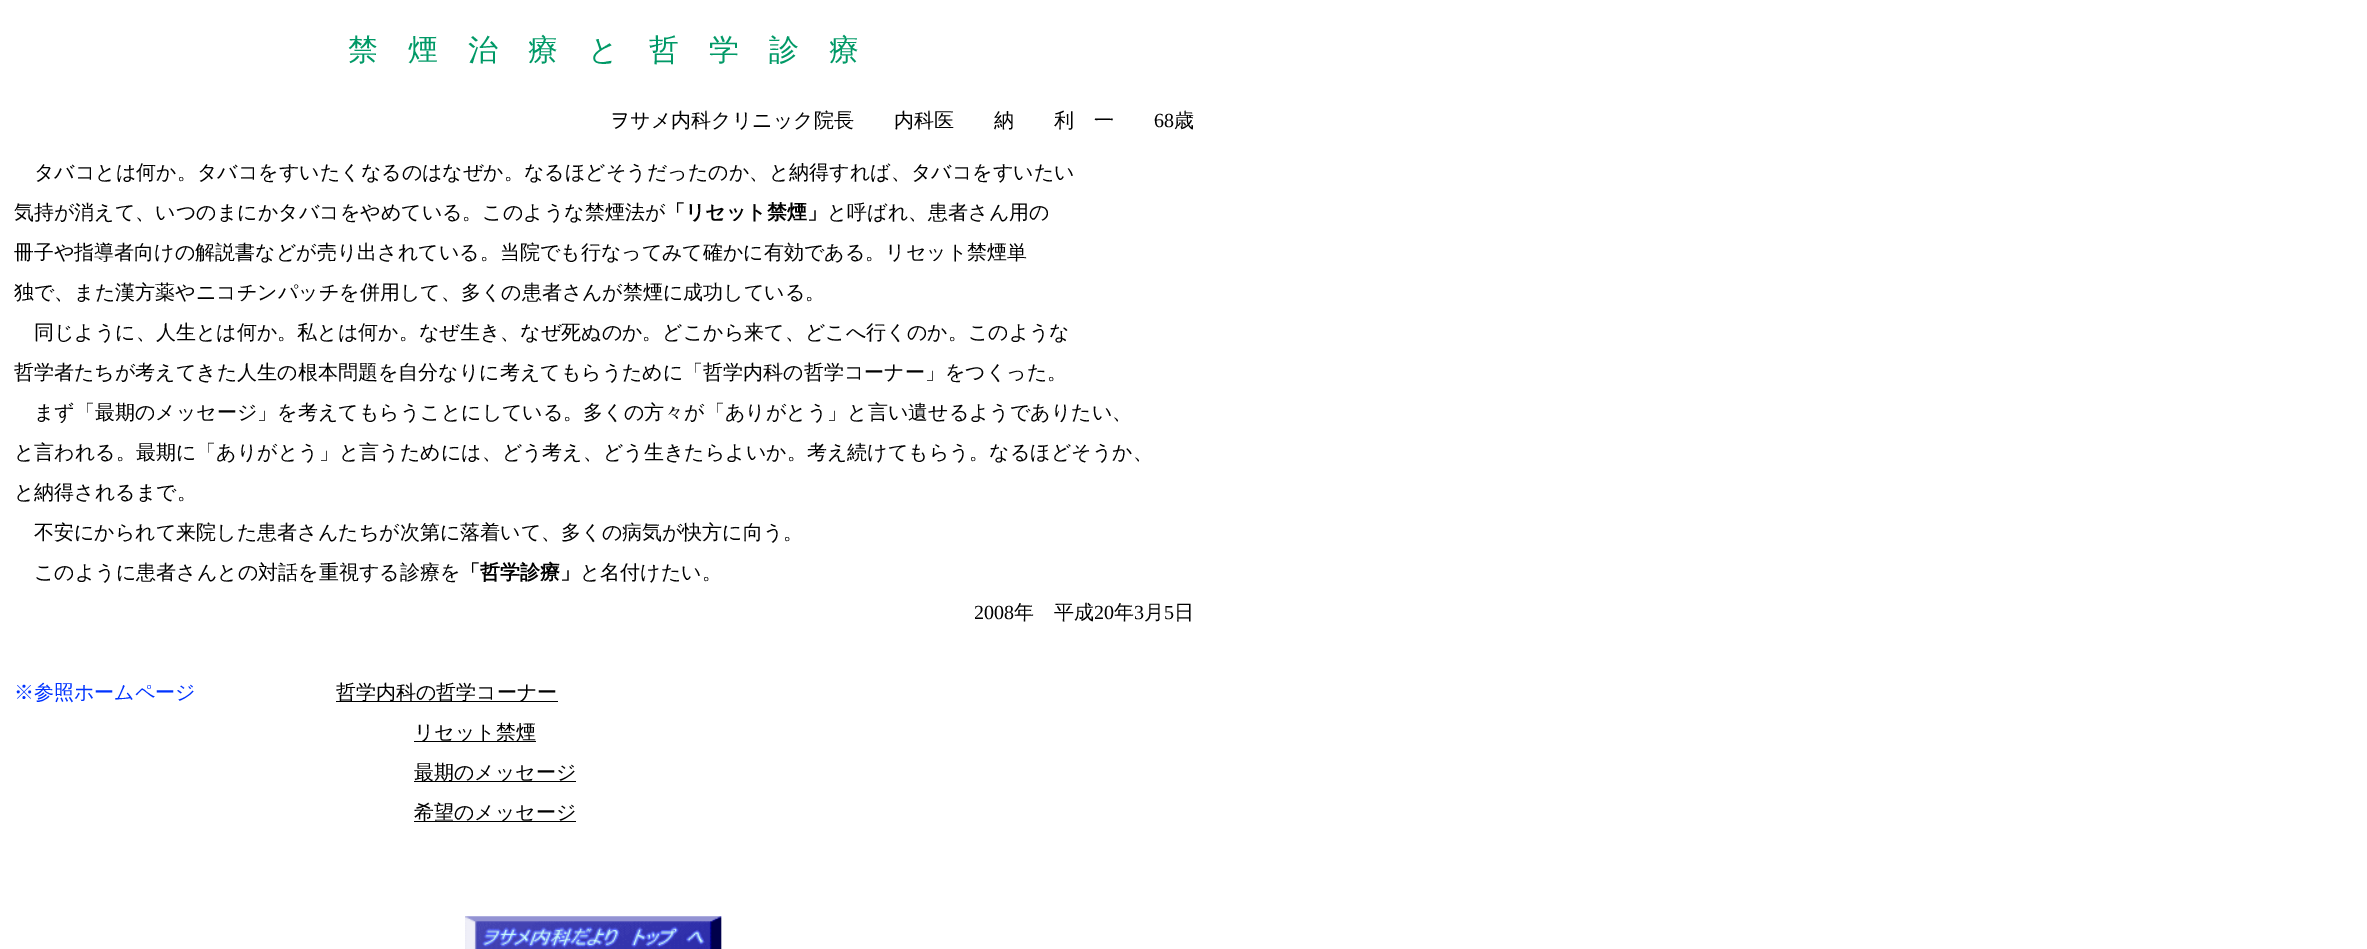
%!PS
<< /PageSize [2367 949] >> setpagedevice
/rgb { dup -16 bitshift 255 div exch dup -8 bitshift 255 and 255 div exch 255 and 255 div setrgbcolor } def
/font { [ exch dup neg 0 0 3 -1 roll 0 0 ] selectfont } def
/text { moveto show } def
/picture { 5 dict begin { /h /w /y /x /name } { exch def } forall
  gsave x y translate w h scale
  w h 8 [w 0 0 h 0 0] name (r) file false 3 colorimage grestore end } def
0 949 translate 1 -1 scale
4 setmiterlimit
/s1 { /WenQuanYiZenHei-Medium 30 font 16#009966 rgb } def
/s2 { /WenQuanYiZenHei-Medium 20 font 16#000000 rgb } def
/s3 { /LiberationSerif-Regular 20 font 16#000000 rgb } def
/s4 { /WenQuanYiZenHei-Bold 20 font 16#000000 rgb } def
/s5 { /WenQuanYiZenHei-Medium 20 font 16#0033FF rgb } def
16#FFFFFF rgb
0 0 2367 949 rectfill
s1
(禁　煙　治　療　と　哲　学　診　療) 348 60 text
s2
(ヲサメ内科クリニック院長　　内科医　　納　　利　一) 610 127 text
s3
(68) 1154 127 text
s2
(歳) 1174 127 text
(タバコとは何か。タバコをすいたくなるのはなぜか。なるほどそうだったのか、と納得すれば、タバコをすいたい) 34 179 text
(気持が消えて、いつのまにかタバコをやめている。このような禁煙法が) 14 219 text
s4
(「リセット禁煙」) 665 219 text
s2
(と呼ばれ、患者さん用の) 827 219 text
(冊子や指導者向けの解説書などが売り出されている。当院でも行なってみて確かに有効である。リセット禁煙単) 14 259 text
(独で、また漢方薬やニコチンパッチを併用して、多くの患者さんが禁煙に成功している。) 14 299 text
(同じように、人生とは何か。私とは何か。なぜ生き、なぜ死ぬのか。どこから来て、どこへ行くのか。このような) 34 339 text
(哲学者たちが考えてきた人生の根本問題を自分なりに考えてもらうために「哲学内科の哲学コーナー」をつくった。) 14 379 text
(まず「最期のメッセージ」を考えてもらうことにしている。多くの方々が「ありがとう」と言い遺せるようでありたい、) 34 419 text
(と言われる。最期に「ありがとう」と言うためには、どう考え、どう生きたらよいか。考え続けてもらう。なるほどそうか、) 14 459 text
(と納得されるまで。) 14 499 text
(不安にかられて来院した患者さんたちが次第に落着いて、多くの病気が快方に向う。) 34 539 text
(このように患者さんとの対話を重視する診療を) 34 579 text
s4
(「哲学診療」) 460 579 text
s2
(と名付けたい。) 580 579 text
s3
(2008) 974 619 text
s2
(年　平成) 1014 619 text
s3
(20) 1094 619 text
s2
(年) 1114 619 text
s3
(3) 1134 619 text
s2
(月) 1144 619 text
s3
(5) 1164 619 text
s2
(日) 1174 619 text
s5
(※参照ホームページ) 14 699 text
16#000000 rgb
336 701 222 1 rectfill
(哲学内科の哲学コーナー) 336 699 text
414 741 122 1 rectfill
(リセット禁煙) 414 739 text
414 781 162 1 rectfill
(最期のメッセージ) 414 779 text
414 821 162 1 rectfill
(希望のメッセージ) 414 819 text
(pic1.raw) 465 916 257 33 picture
showpage
